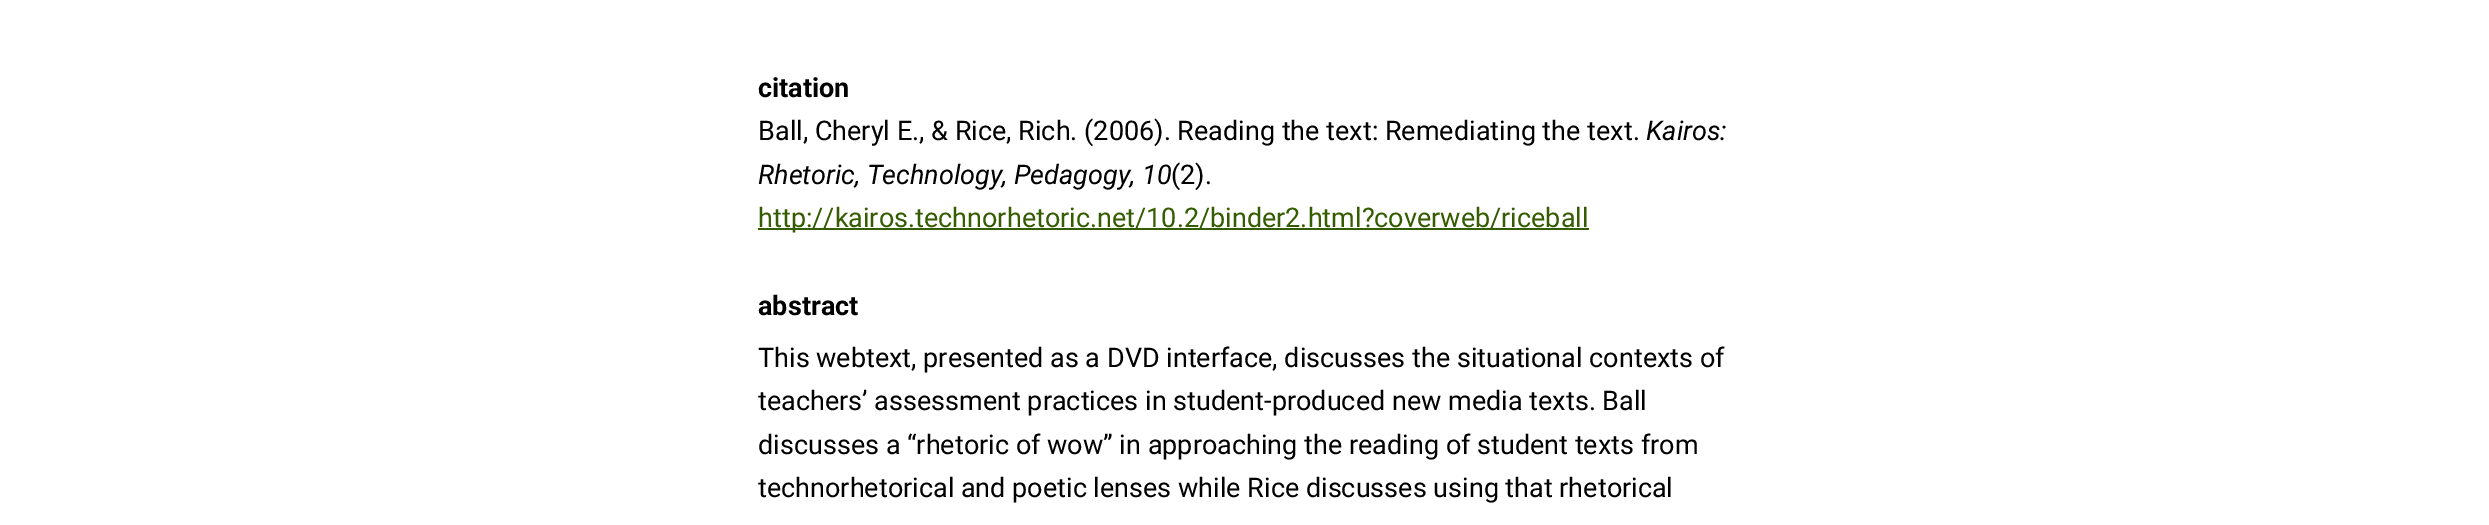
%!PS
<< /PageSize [2489 525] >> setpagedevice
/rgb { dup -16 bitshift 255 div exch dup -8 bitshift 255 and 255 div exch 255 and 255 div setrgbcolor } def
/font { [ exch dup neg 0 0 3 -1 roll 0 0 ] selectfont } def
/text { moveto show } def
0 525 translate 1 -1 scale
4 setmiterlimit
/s1 { /Roboto-Bold 27 font 16#000000 rgb } def
/s2 { /Roboto-Regular 27 font 16#000000 rgb } def
/s3 { /Roboto-Italic 27 font 16#000000 rgb } def
/s4 { /Roboto-Regular 27 font 16#345C00 rgb } def
16#FFFFFF rgb
0 0 2489 525 rectfill
s1
(citation) 758 97 text
s2
(Ball, Cheryl E., & Rice, Rich. \(2006\). Reading the text: Remediating the text.) 758 140 text
s3
(Kairos:) 1646 140 text
(Rhetoric, Technology, Pedagogy, 10) 758 184 text
s2
(\(2\).) 1171 184 text
16#345C00 rgb
758 228 831 2 rectfill
(http://kairos.technorhetoric.net/10.2/binder2.html?coverweb/riceball) 758 227 text
s1
(abstract) 758 315 text
s2
(This webtext, presented as a DVD interface, discusses the situational contexts of) 758 367 text
(teachers’ assessment practices in student-produced new media texts. Ball) 758 410 text
(discusses a “rhetoric of wow” in approaching the reading of student texts from) 758 454 text
(technorhetorical and poetic lenses while Rice discusses using that rhetorical) 758 497 text
showpage
